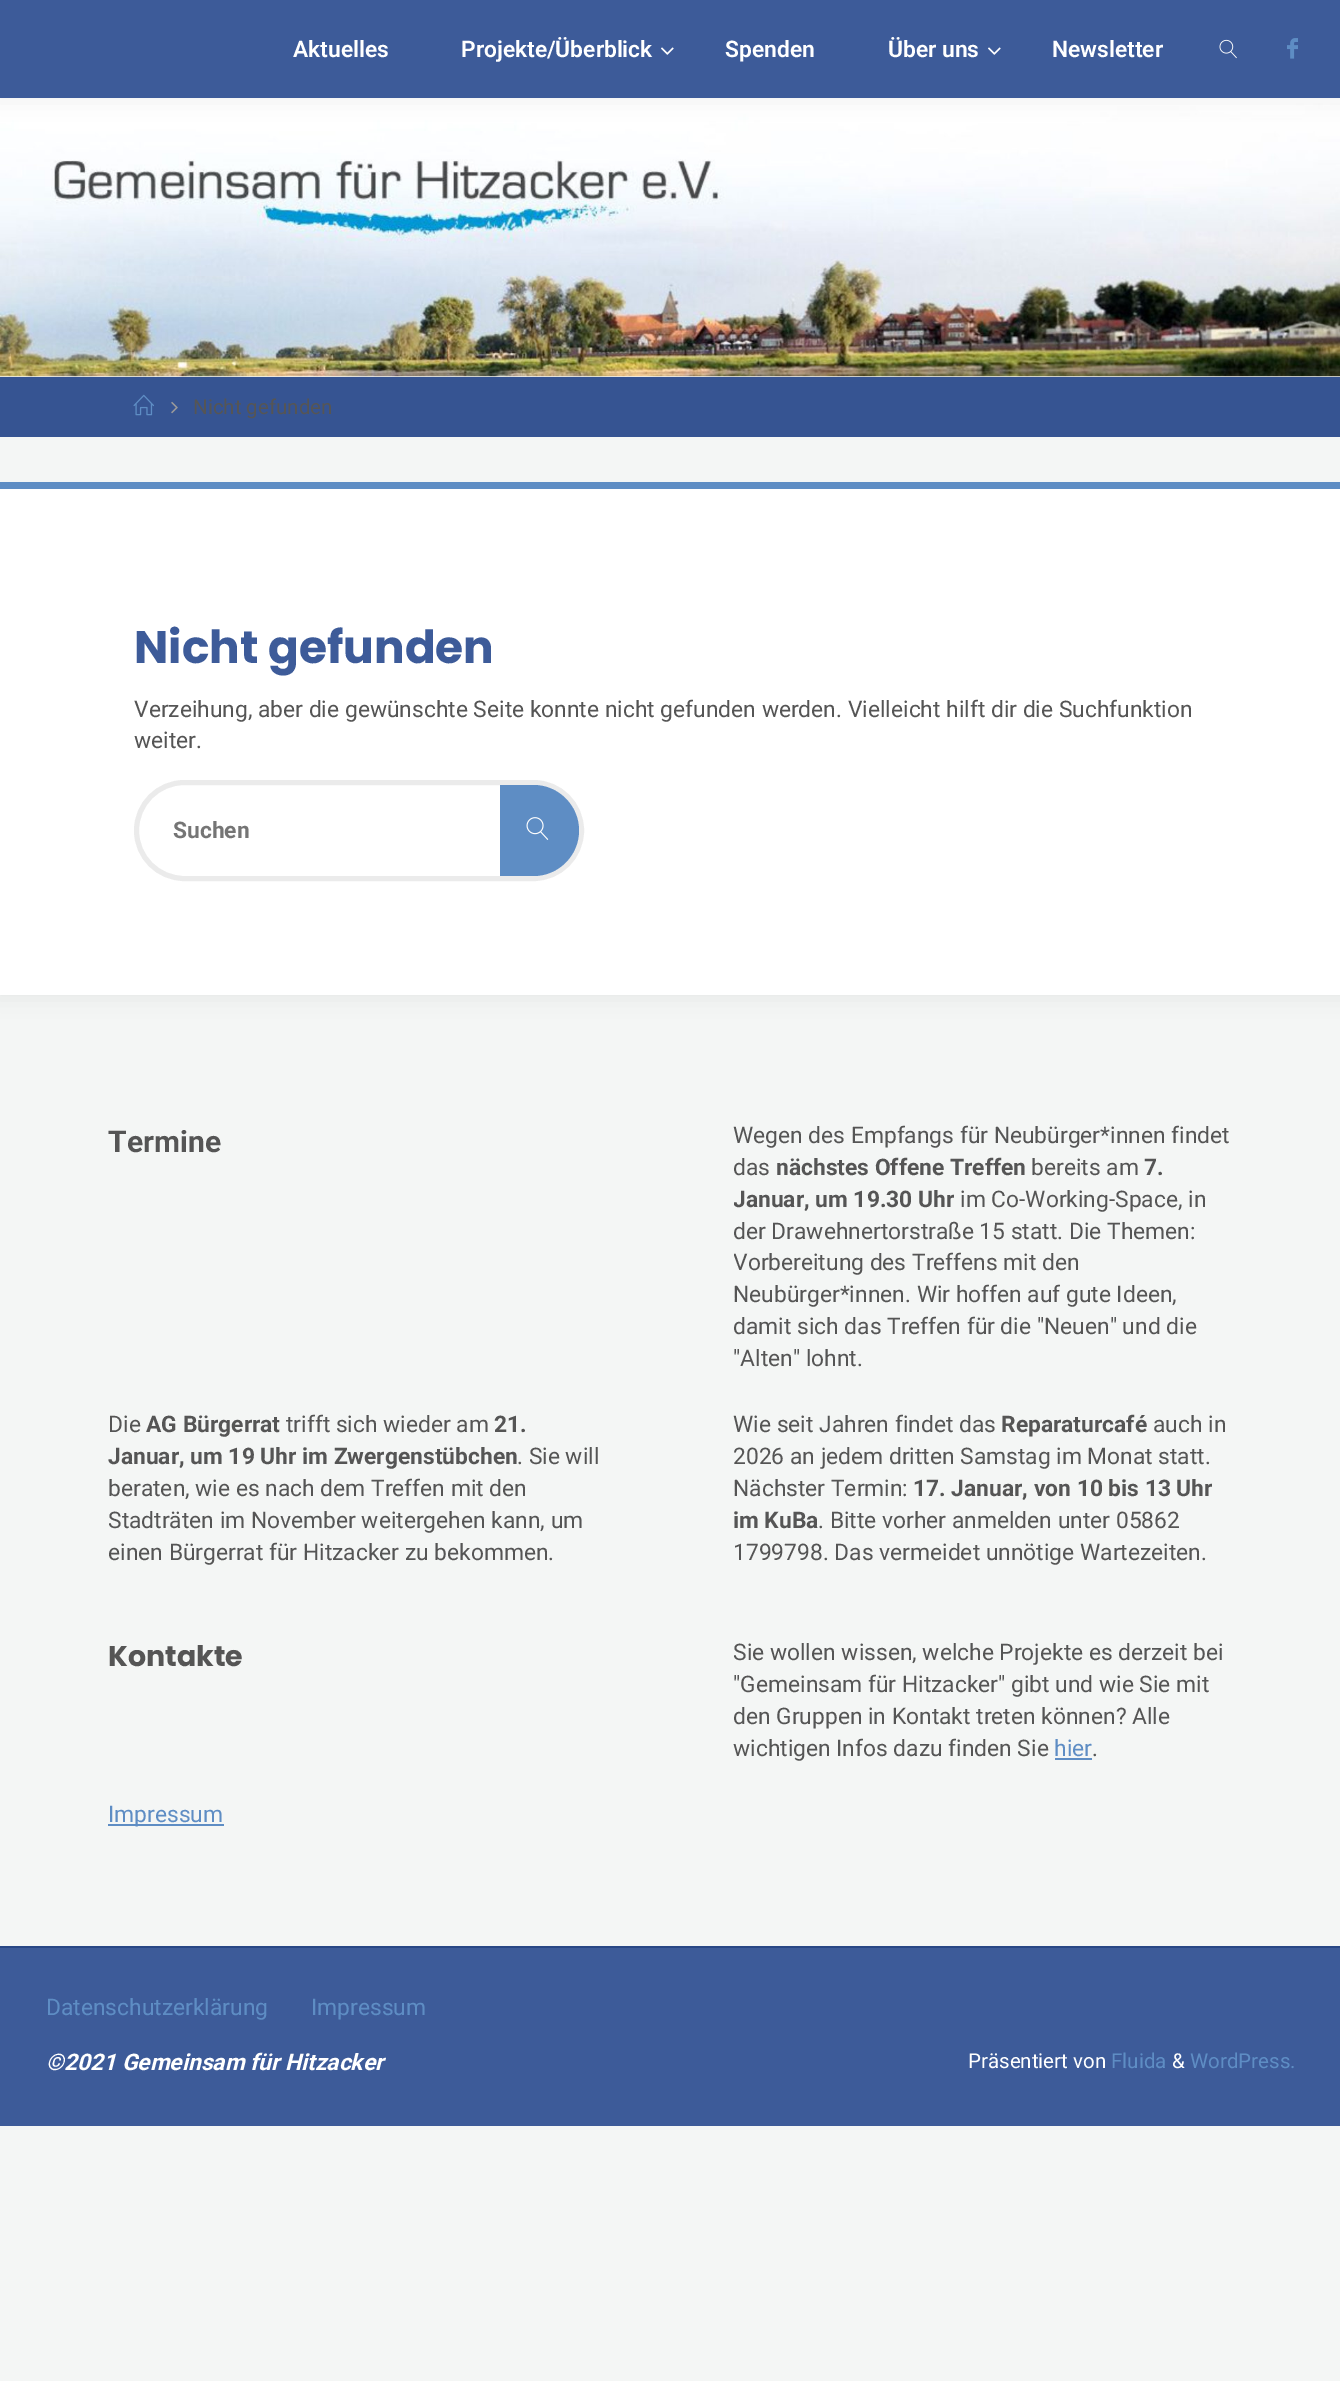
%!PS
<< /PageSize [1340 2381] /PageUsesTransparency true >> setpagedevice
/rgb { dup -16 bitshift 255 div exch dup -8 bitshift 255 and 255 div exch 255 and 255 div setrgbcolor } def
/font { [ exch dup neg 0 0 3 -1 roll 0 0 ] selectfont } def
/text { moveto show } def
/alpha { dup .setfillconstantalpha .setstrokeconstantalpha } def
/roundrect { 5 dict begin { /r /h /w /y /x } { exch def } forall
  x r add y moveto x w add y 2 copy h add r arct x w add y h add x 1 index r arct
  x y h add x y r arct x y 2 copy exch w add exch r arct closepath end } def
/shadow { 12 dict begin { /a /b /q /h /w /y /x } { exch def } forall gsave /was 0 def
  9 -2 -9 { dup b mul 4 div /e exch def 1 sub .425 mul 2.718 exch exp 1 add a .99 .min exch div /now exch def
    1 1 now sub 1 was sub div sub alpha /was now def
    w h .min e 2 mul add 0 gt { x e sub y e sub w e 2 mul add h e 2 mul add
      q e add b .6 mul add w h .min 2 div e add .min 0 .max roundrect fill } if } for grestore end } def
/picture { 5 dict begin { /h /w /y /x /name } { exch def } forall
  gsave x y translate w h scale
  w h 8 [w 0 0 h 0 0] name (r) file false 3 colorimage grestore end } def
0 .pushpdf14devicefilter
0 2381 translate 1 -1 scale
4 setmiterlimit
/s1 { /Roboto-SemiBold 22.8 font 16#FFFFFF rgb } def
/s2 { /Roboto-Regular 20.5 font 16#555555 rgb } def
/s3 { /Poppins-Bold 45.5 font 16#3D5B99 rgb } def
/s4 { /Roboto-Regular 22.8 font 16#555555 rgb } def
/s5 { /Roboto-Bold 22.8 font 16#757575 rgb } def
/s6 { /Roboto-Bold 30 font 16#555555 rgb } def
/s7 { /Roboto-Bold 22.8 font 16#555555 rgb } def
/s8 { /Poppins-Bold 28.5 font 16#555555 rgb } def
/s9 { /Roboto-Regular 22.8 font 16#5E8DC4 rgb } def
/s10 { /Roboto-BoldItalic 22.8 font 16#FFFFFF rgb } def
/s11 { /Roboto-Regular 20.5 font 16#FFFFFF rgb } def
/s12 { /Roboto-Regular 20.5 font 16#5E8DC4 rgb } def
16#F4F6F5 rgb
0 0 1340 2381 rectfill
(pic4.raw) 0 98 1340 279 picture
16#000000 rgb
-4 -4 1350 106 0 11.5 0.05 shadow
16#3D5B99 rgb
0 0 1340 98 rectfill
s1
(Aktuelles) 293 57 text
(Projekte/Überblick) 461 57 text
(pic1.raw) 661 47 13 8 picture
(Spenden) 725 57 text
(Über uns) 888 57 text
(pic1.raw) 988 47 13 8 picture
(Newsletter) 1052 57 text
(pic2.raw) 1219 39 18 20 picture
(pic3.raw) 1287 38 11 21 picture
16#365492 rgb
0 377 1340 60 rectfill
(pic5.raw) 133 394 21 22 picture
(pic6.raw) 171 401 7 13 picture
s2
(Nicht gefunden) 193 414 text
gsave
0 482 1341 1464 rectclip
16#000000 rgb
-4 477 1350 522 0 11.5 0.05 shadow
grestore
16#FFFFFF rgb
0 489 1340 506 rectfill
16#5E8DC4 rgb
0 482 1340 7 rectfill
s3
(Nicht gefunden) 134 663 text
s4
(Verzeihung, aber die gewünschte Seite konnte nicht gefunden werden. Vielleicht hilft dir die Suchfunktion) 134 717 text
(weiter.) 134 748 text
16#EBEBEB rgb
5 setlinewidth
136.5 782.5 445 96 48 roundrect stroke
16#5E8DC4 rgb
500 785 moveto 533.5 785 lineto 558.5 785 579 805.5 579 830.5 curveto 579 855.5 558.5 876 533.5 876 curveto 500 876 lineto closepath fill
s5
(Suchen) 173 838 text
(pic7.raw) 526 817 23 23 picture
s6
(Termine) 108 1152 text
s4
(Wegen des Empfangs für Neubürger*innen findet) 733 1143 text
(das) 733 1175 text
s7
(nächstes Offene Treffen) 776 1175 text
s4
(bereits am) 1031 1175 text
s7
(7.) 1144 1175 text
gsave
734 1121 499 255 rectclip
(Januar, um 19.30 Uhr) 733 1207 text
grestore
s4
(im Co-Working-Space, in) 960 1207 text
(der Drawehnertorstraße 15 statt. Die Themen:) 733 1239 text
gsave
734 1121 499 255 rectclip
(Vorbereitung des Treffens mit den) 733 1270 text
grestore
(Neubürger*innen. Wir hoffen auf gute Ideen,) 733 1302 text
(damit sich das Treffen für die "Neuen" und die) 733 1334 text
("Alten" lohnt.) 733 1366 text
(Die) 108 1432 text
s7
(AG Bürgerrat) 146 1432 text
s4
(trifft sich wieder am) 286 1432 text
s7
(21.) 494 1432 text
(Januar, um 19 Uhr im Zwergenstübchen) 108 1464 text
s4
(. Sie will) 517 1464 text
(beraten, wie es nach dem Treffen mit den) 108 1496 text
(Stadträten im November weitergehen kann, um) 108 1528 text
(einen Bürgerrat für Hitzacker zu bekommen.) 108 1560 text
(Wie seit Jahren findet das) 733 1432 text
s7
(Reparaturcafé) 1001 1432 text
s4
(auch in) 1153 1432 text
(2026 an jedem dritten Samstag im Monat statt.) 733 1464 text
(Nächster Termin:) 733 1496 text
s7
(17. Januar, von 10 bis 13 Uhr) 913 1496 text
(im KuBa) 733 1528 text
s4
(. Bitte vorher anmelden unter 05862) 818 1528 text
(1799798. Das vermeidet unnötige Wartezeiten.) 733 1560 text
s8
(Kontakte) 108 1666 text
s4
(Sie wollen wissen, welche Projekte es derzeit bei) 733 1660 text
("Gemeinsam für Hitzacker" gibt und wie Sie mit) 733 1692 text
(den Gruppen in Kontakt treten können? Alle) 733 1724 text
(wichtigen Infos dazu finden Sie) 733 1756 text
s9
(hier) 1054 1756 text
1055 1758 37 2 rectfill
s4
(.) 1092 1756 text
16#5E8DC4 rgb
108 1824 116 2 rectfill
(Impressum) 108 1822 text
16#3D5B99 rgb
0 1948 1340 178 rectfill
16#294785 rgb
0 1946 1340 2 rectfill
s9
(Datenschutzerklärung) 46 2015 text
(Impressum) 311 2015 text
s10
(©2021 Gemeinsam für Hitzacker) 46 2070 text
s11
(Präsentiert von) 968 2068 text
s12
(Fluida) 1111 2068 text
s11
(&) 1172 2068 text
s12
(WordPress.) 1190 2068 text
.poppdf14devicefilter showpage
